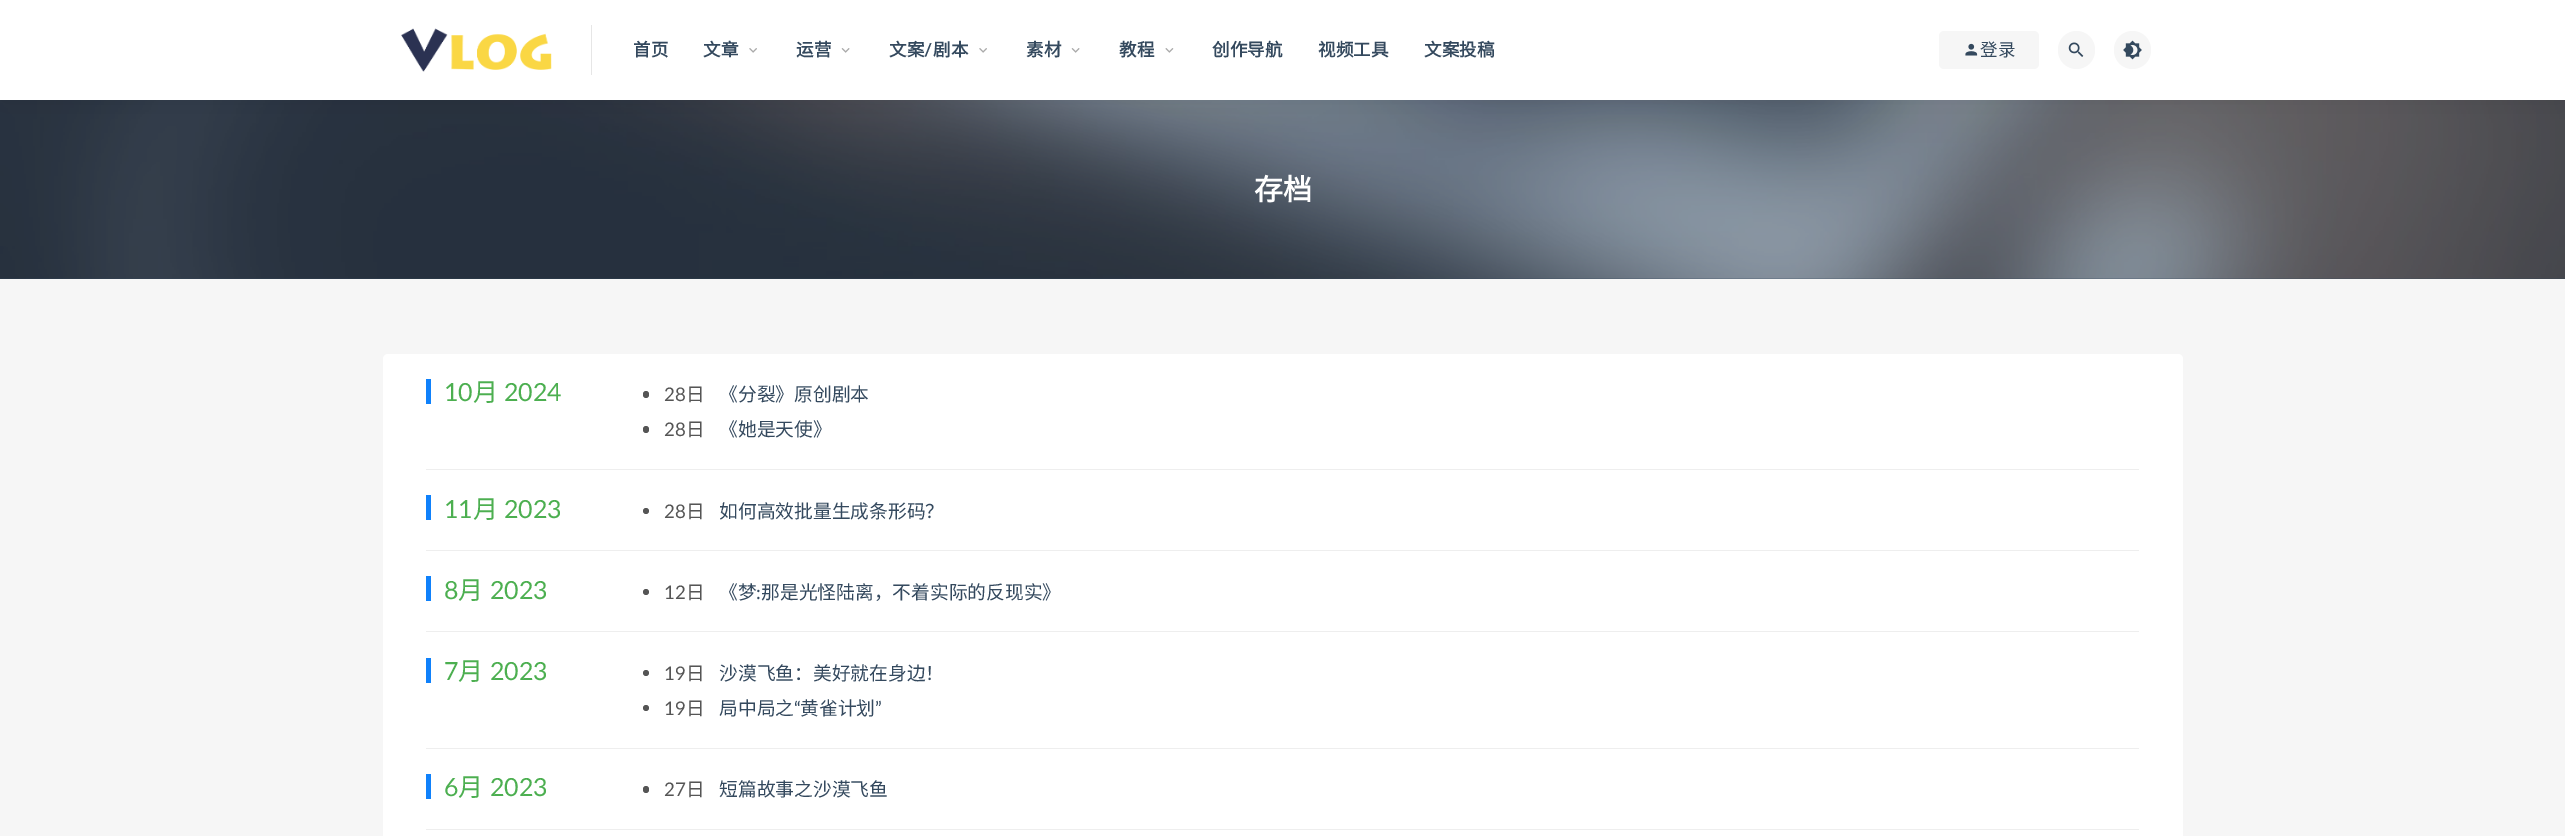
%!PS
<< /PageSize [2565 836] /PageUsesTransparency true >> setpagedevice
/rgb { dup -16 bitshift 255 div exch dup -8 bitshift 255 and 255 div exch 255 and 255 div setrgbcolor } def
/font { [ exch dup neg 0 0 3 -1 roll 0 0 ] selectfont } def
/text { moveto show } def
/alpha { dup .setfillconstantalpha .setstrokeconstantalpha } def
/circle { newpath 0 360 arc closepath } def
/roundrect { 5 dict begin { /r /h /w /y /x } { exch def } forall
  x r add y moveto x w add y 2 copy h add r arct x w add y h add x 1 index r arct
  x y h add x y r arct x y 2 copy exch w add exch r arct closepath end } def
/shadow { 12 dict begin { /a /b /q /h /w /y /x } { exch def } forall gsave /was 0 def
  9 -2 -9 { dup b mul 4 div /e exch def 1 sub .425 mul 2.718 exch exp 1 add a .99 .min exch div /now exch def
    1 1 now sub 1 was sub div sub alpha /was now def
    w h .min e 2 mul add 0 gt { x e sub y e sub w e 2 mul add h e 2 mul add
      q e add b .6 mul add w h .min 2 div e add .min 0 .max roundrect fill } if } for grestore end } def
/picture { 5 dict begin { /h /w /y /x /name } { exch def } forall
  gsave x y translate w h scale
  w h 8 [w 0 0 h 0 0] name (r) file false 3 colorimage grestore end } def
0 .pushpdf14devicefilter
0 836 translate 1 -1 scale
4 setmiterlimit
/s1 { /NotoSansCJKSC-Bold 17.5 font 16#34495E rgb } def
/s2 { /Lato-Bold 17.5 font 16#34495E rgb } def
/s3 { /NotoSansCJKSC-Regular 17.5 font 16#34495E rgb } def
/s4 { /NotoSansCJKSC-Bold 29 font 16#FFFFFF rgb } def
/s5 { /Lato-Regular 25 font 16#4CAF50 rgb } def
/s6 { /NotoSansCJKSC-Regular 25 font 16#4CAF50 rgb } def
/s7 { /Lato-Regular 18.75 font 16#555555 rgb } def
/s8 { /NotoSansCJKSC-Regular 18.75 font 16#555555 rgb } def
/s9 { /NotoSansCJKSC-Regular 18.75 font 16#34495E rgb } def
/s10 { /Lato-Regular 18.75 font 16#34495E rgb } def
16#F6F6F6 rgb
0 0 2565 836 rectfill
(pic8.raw) 0 100 2565 179 picture
16#000000 rgb
0 0 2565 100 0 19 0.07 shadow
16#FFFFFF rgb
0 0 2565 100 rectfill
(pic1.raw) 401 28 151 44 picture
16#E6E6E6 rgb
591 25 1 50 rectfill
s1
(首页) 633 56 text
(文章) 703 56 text
(pic2.raw) 749 48 8 5 picture
(运营) 796 56 text
(pic3.raw) 841 48 9 5 picture
(文案) 889 56 text
s2
(/) 924 56 text
s1
(剧本) 933 56 text
(pic2.raw) 979 48 8 5 picture
(素材) 1026 56 text
(pic3.raw) 1071 48 9 5 picture
(教程) 1119 56 text
(pic4.raw) 1165 48 9 5 picture
(创作导航) 1212 56 text
(视频工具) 1318 56 text
(文案投稿) 1424 56 text
16#F6F6F6 rgb
1939 31 100 38 5 roundrect fill
(pic5.raw) 1965 43 13 13 picture
s3
(登录) 1980 56 text
16#F6F6F6 rgb
2058 31 37 38 18.5 roundrect fill
(pic6.raw) 2068 42 16 15 picture
2114 31 37 38 18.5 roundrect fill
(pic7.raw) 2123 40 19 20 picture
s4
(存档) 1254 200 text
383 354 1800 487 5 roundrect fill
16#EEEEEE rgb
426 469 1713 1 rectfill
16#0F81FB rgb
426 379 5 25 rectfill
s5
(10) 444 401 text
s6
(月) 473 401 text
s5
(2024) 504 401 text
16#555555 rgb
643 391 6 7 3 roundrect fill
s7
(28) 664 401 text
s8
(日) 686 401 text
s9
(《分裂》原创剧本) 719 401 text
16#555555 rgb
643 426 6 7 3 roundrect fill
s7
(28) 664 436 text
s8
(日) 686 436 text
s9
(《她是天使》) 719 436 text
16#EEEEEE rgb
426 550 1713 1 rectfill
16#0F81FB rgb
426 495 5 25 rectfill
s5
(11) 444 518 text
s6
(月) 473 518 text
s5
(2023) 504 518 text
16#555555 rgb
646 511 3 circle fill
s7
(28) 664 518 text
s8
(日) 686 518 text
s9
(如何高效批量生成条形码？) 719 518 text
16#EEEEEE rgb
426 631 1713 1 rectfill
16#0F81FB rgb
426 576 5 25 rectfill
s5
(8) 444 599 text
s6
(月) 458 599 text
s5
(2023) 490 599 text
16#555555 rgb
646 592 3 circle fill
s7
(12) 664 599 text
s8
(日) 686 599 text
s9
(《梦) 719 599 text
s10
(:) 756 599 text
s9
(那是光怪陆离，不着实际的反现实》) 761 599 text
16#EEEEEE rgb
426 748 1713 1 rectfill
16#0F81FB rgb
426 658 5 25 rectfill
s5
(7) 444 680 text
s6
(月) 458 680 text
s5
(2023) 490 680 text
16#555555 rgb
646 673 3 circle fill
s7
(19) 664 680 text
s8
(日) 686 680 text
s9
(沙漠飞鱼：美好就在身边！) 719 680 text
s7
(19) 664 715 text
s8
(日) 686 715 text
s9
(局中局之) 719 715 text
s10
(“) 794 715 text
s9
(黄雀计划) 800 715 text
s10
(”) 875 715 text
16#555555 rgb
646 708 3 circle fill
16#EEEEEE rgb
426 829 1713 1 rectfill
16#0F81FB rgb
426 774 5 25 rectfill
s5
(6) 444 796 text
s6
(月) 458 796 text
s5
(2023) 490 796 text
16#555555 rgb
643 786 6 7 3 roundrect fill
s7
(27) 664 796 text
s8
(日) 686 796 text
s9
(短篇故事之沙漠飞鱼) 719 796 text
.poppdf14devicefilter showpage
